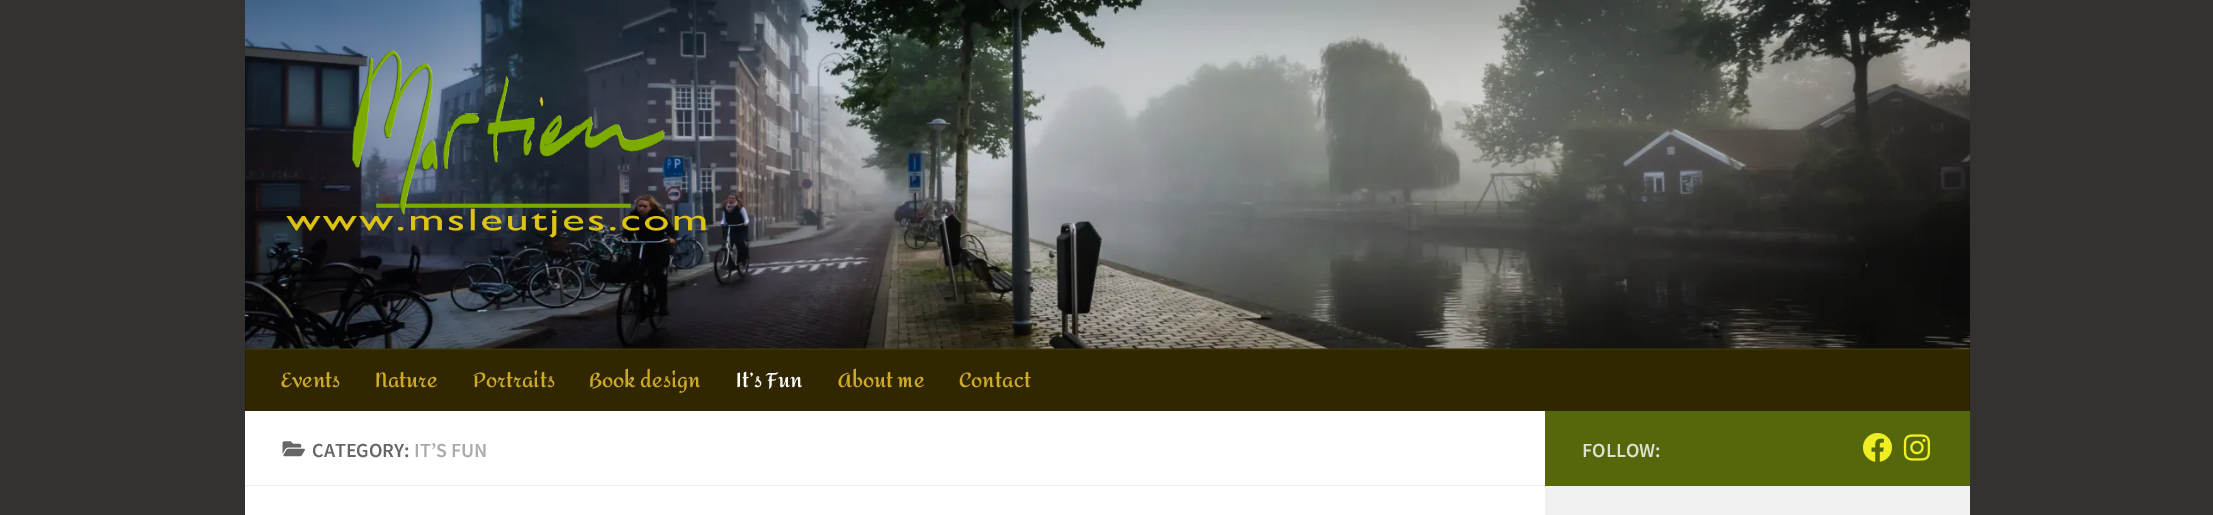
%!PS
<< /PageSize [2213 515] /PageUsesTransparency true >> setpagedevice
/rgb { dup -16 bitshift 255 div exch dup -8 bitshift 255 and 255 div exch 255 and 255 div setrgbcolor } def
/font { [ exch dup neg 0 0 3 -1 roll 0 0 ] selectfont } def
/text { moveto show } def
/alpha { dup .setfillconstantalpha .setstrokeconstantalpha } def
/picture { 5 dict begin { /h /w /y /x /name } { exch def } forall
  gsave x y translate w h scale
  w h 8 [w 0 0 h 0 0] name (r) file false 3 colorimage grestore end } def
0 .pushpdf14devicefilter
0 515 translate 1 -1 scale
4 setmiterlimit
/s1 { /Amita-Bold 20 font 16#CEAA29 rgb } def
/s2 { /Amita-Bold 20 font 16#FFFFFF rgb } def
/s3 { /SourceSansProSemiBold-SemiBold 20 font 16#666666 rgb } def
/s4 { /SourceSansProSemiBold-SemiBold 20 font 16#AAAAAA rgb } def
/s5 { /SourceSansProSemiBold-SemiBold 20 font 16#DDE1CE rgb } def
16#343131 rgb
0 0 2213 515 rectfill
16#585B00 rgb
245 0 1725 349 rectfill
(pic1.raw) 245 0 1725 349 picture
(pic2.raw) 286 50 427 188 picture
0.2 alpha
16#000000 rgb
245 348 1725 1 rectfill
1 alpha
16#302600 rgb
246 350 1723 61 rectfill
16#3A310D rgb
245 349 1725 1 rectfill
16#261E00 rgb
1969 349 1 62 rectfill
16#31290D rgb
1969 349 1 1 rectfill
16#261E00 rgb
245 349 1 62 rectfill
16#31290D rgb
245 349 1 1 rectfill
s1
(Events) 281 387 text
(Nature) 375 387 text
(Portraits) 473 387 text
(Book design) 589 387 text
s2
(It’s Fun) 736 387 text
s1
(About me) 838 387 text
(Contact) 959 387 text
16#FFFFFF rgb
245 411 1300 104 rectfill
16#EEEEEE rgb
245 485 1300 1 rectfill
(pic3.raw) 282 441 23 16 picture
s3
(CATEGORY:) 312 457 text
s4
(IT’S FUN) 414 457 text
16#54680B rgb
1545 411 425 75 rectfill
s5
(FOLLOW:) 1582 457 text
(pic4.raw) 1863 433 29 29 picture
(pic5.raw) 1903 434 28 27 picture
16#F0F0F0 rgb
1545 486 425 29 rectfill
.poppdf14devicefilter showpage
